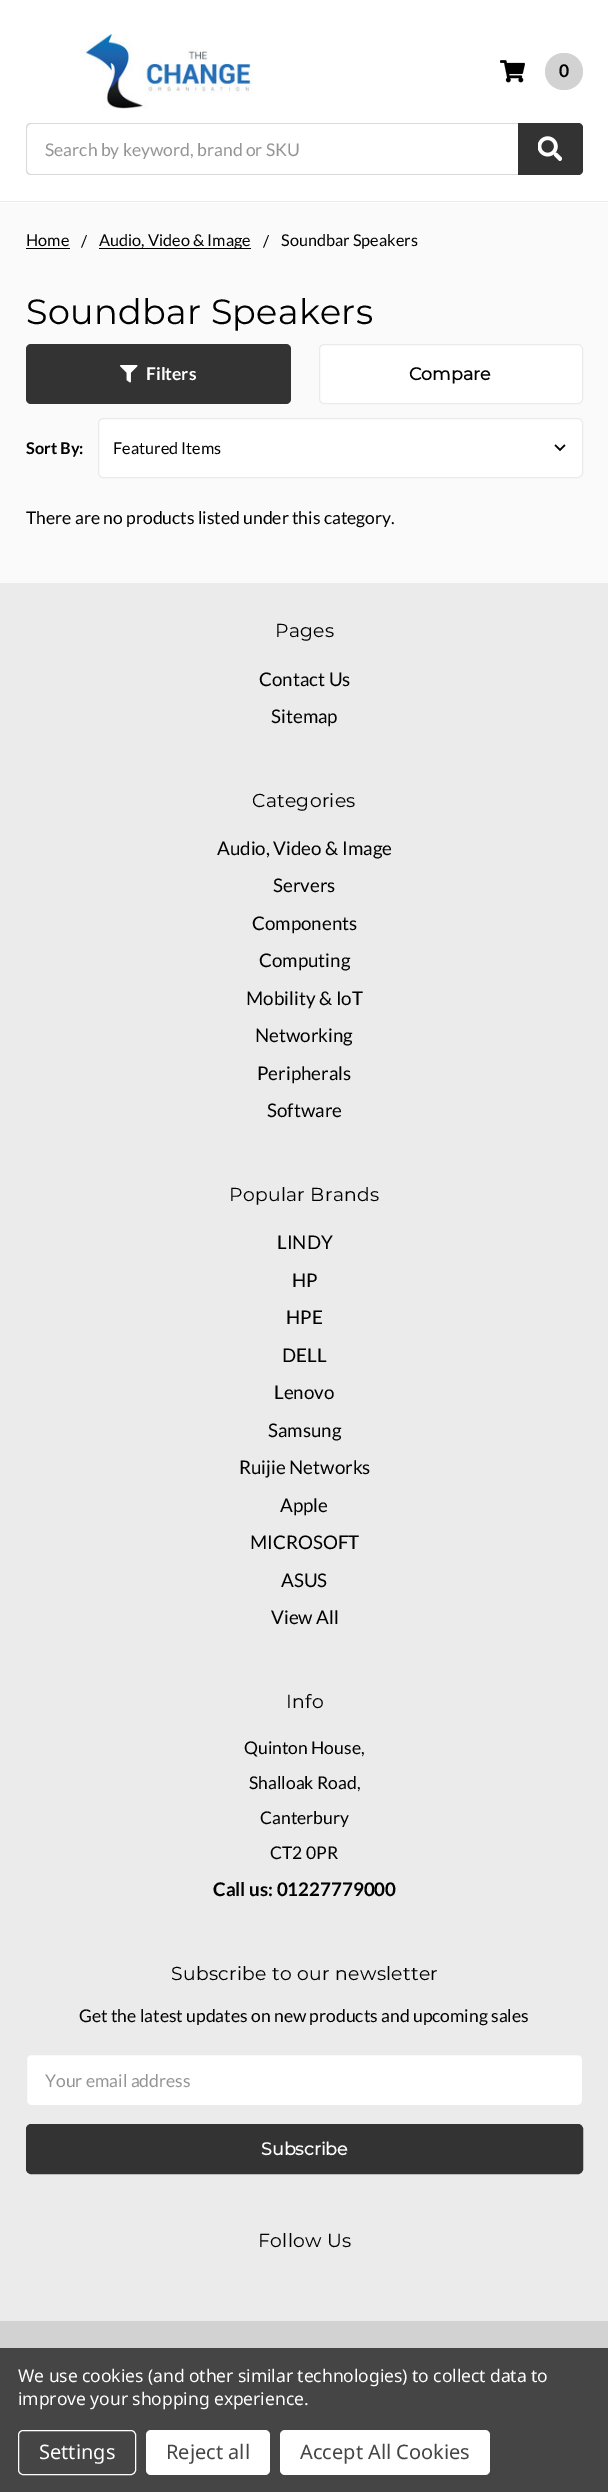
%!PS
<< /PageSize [608 2492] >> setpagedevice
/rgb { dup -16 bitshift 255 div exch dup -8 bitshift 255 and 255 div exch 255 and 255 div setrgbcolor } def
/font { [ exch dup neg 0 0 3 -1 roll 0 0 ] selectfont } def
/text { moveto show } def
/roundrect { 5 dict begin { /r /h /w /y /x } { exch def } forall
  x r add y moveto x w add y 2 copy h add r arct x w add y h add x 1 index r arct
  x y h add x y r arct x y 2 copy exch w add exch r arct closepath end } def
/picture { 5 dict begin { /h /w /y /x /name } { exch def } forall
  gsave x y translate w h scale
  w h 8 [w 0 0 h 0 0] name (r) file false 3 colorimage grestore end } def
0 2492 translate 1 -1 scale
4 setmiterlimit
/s1 { /Lato-Bold 17.5 font 16#000000 rgb } def
/s2 { /Lato-Regular 17.5 font 16#959595 rgb } def
/s3 { /Lato-Regular 16.25 font 16#000000 rgb } def
/s4 { /Montserrat-Bold 17.5 font 16#000000 rgb } def
/s5 { /Lato-Bold 16.25 font 16#000000 rgb } def
/s6 { /Lato-Bold 17.5 font 16#FFFFFF rgb } def
/s7 { /Lato-Regular 17.5 font 16#000000 rgb } def
/s8 { /Lato-Regular 18.75 font 16#000000 rgb } def
/s9 { /Lato-Bold 18.75 font 16#000000 rgb } def
/s10 { /Montserrat-Bold 17.5 font 16#FFFFFF rgb } def
/s11 { /NotoSans-Regular 20 font 16#FFFFFF rgb } def
/s12 { /NotoSans-Regular 20 font 16#454545 rgb } def
16#FAFAFA rgb
0 0 608 2492 rectfill
16#FFFFFF rgb
0 0 608 203 rectfill
16#EBEBEB rgb
0 201 608 1 rectfill
(pic1.raw) 80 34 173 75 picture
(pic2.raw) 500 60 25 23 picture
16#D2D2D2 rgb
545 53 38 37 18.5 roundrect fill
s1
(0) 559 77 text
16#D9D9D9 rgb
31 123 moveto 28 123 26 125 26 128 curveto 26 170 lineto 26 173 28 175 31 175 curveto 578 175 lineto 579 175 580 175 581 174 curveto 31 174 lineto 29 174 27 172 27 170 curveto 27 128 lineto 27 126 29 124 31 124 curveto 581 124 lineto 578 123 lineto closepath 582 125 moveto 582 173 lineto 583 172 583 171 583 170 curveto 583 128 lineto 583 127 583 126 582 125 curveto closepath eofill
s2
(Search by keyword, brand or SKU) 45 156 text
16#333333 rgb
518 123 moveto 578 123 lineto 581 123 583 125 583 128 curveto 583 170 lineto 583 173 581 175 578 175 curveto 518 175 lineto closepath fill
(pic3.raw) 538 136 24 25 picture
s3
(Home) 26 246 text
26 248 44 1 rectfill
(/) 81 247 text
99 248 152 1 rectfill
(Audio, Video & Image) 99 246 text
(/) 263 247 text
(Soundbar Speakers) 281 246 text
/Montserrat-Thin 35 font
26 324 moveto 0.3 0 (Soundbar Speakers) ashow
16#FFFFFF rgb
319.5 344.5 263 59 4.5 roundrect gsave fill grestore
16#EBEBEB rgb
stroke
s4
(Compare) 409 380 text
s5
(Sort By:) 26 454 text
16#FFFFFF rgb
98.5 418.5 484 59 4.5 roundrect gsave fill grestore
16#EBEBEB rgb
stroke
(pic4.raw) 554 444 12 8 picture
s3
(Featured Items) 113 454 text
16#333333 rgb
26 344 265 60 5 roundrect fill
(pic5.raw) 120 365 18 18 picture
s6
(Filters) 146 380 text
s7
(There are no products listed under this category.) 26 524 text
16#EBEBEB rgb
0 583 608 1738 rectfill
/Montserrat-Thin 18.75 font
16#000000 rgb
275 637 moveto 0.3 0 (Pages) ashow
s8
(Contact Us) 259 686 text
(Sitemap) 271 723 text
/Montserrat-Thin 18.75 font
252 807 moveto 0.3 0 (Categories) ashow
s8
(Audio, Video & Image) 217 855 text
(Servers) 273 892 text
(Components) 252 930 text
(Computing) 259 967 text
(Mobility & IoT) 246 1005 text
(Networking) 255 1042 text
(Peripherals) 257 1080 text
(Software) 267 1117 text
/Montserrat-Thin 18.75 font
229 1201 moveto 0.3 0 (Popular Brands) ashow
s8
(LINDY) 277 1249 text
(HP) 292 1287 text
(HPE) 286 1324 text
(DELL) 282 1362 text
(Lenovo) 274 1399 text
(Samsung) 268 1437 text
(Ruijie Networks) 239 1474 text
(Apple) 280 1512 text
(MICROSOFT) 250 1549 text
(ASUS) 281 1587 text
(View All) 271 1624 text
/Montserrat-Thin 18.75 font
286 1708 moveto 0.3 0 (Info) ashow
s7
(Quinton House,) 244 1754 text
(Shalloak Road,) 249 1789 text
(Canterbury) 260 1824 text
(CT2 0PR) 270 1859 text
s9
(Call us: 01227779000) 213 1896 text
/Montserrat-Thin 18.75 font
171 1980 moveto 0.3 0 (Subscribe to our newsletter) ashow
s7
(Get the latest updates on new products and upcoming sales) 79 2022 text
16#FFFFFF rgb
26.5 2054.5 556 51 4.5 roundrect gsave fill grestore
16#EBEBEB rgb
stroke
s2
(Your email address) 45 2087 text
16#333333 rgb
26.5 2124.5 556 49 4.5 roundrect gsave fill grestore
stroke
s10
(Subscribe) 261 2155 text
/Montserrat-Thin 18.75 font
16#000000 rgb
258 2247 moveto 0.3 0 (Follow Us) ashow
16#D2D2D2 rgb
0 2321 608 27 rectfill
16#454545 rgb
0 2348 608 144 rectfill
/NotoSans-Regular 17.5 font
16#FFFFFF rgb
18 2382 moveto -0.05 0 (We use cookies \(and other similar technologies\) to collect data to) ashow
18 2405 moveto -0.05 0 (improve your shopping experience.) ashow
18.5 2430.5 117 44 4.5 roundrect stroke
s11
(Settings) 39 2459 text
146 2430 124 45 5 roundrect fill
s12
(Reject all) 166 2459 text
16#FFFFFF rgb
280 2430 210 45 5 roundrect fill
s12
(Accept All Cookies) 300 2459 text
showpage
